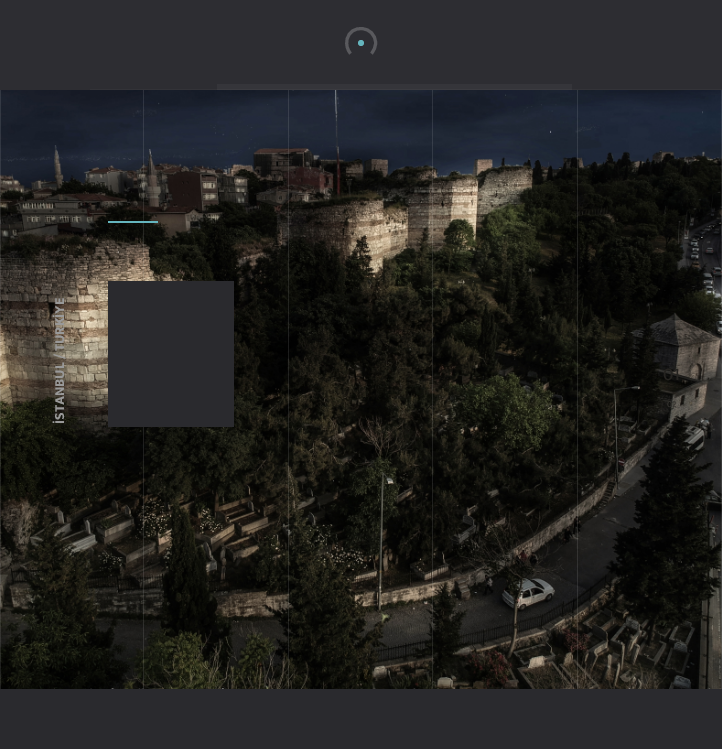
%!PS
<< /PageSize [722 749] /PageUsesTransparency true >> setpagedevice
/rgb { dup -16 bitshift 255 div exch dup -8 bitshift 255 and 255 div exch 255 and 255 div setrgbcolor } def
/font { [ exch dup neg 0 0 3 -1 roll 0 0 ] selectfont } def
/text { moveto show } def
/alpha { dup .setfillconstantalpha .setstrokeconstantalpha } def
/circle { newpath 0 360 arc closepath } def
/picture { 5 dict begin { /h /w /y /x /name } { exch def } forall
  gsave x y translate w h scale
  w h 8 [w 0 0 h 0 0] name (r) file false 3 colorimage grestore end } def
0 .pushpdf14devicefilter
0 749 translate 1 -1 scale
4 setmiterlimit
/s1 { /Mukta-Medium 18 font 16#252320 rgb } def
/s2 { /Mukta-Medium 9 font 16#35332F rgb } def
16#2A2A2E rgb
0 0 722 749 rectfill
16#2D2D32 rgb
0 0 722 90 rectfill
16#59595D rgb
3 setlinewidth
350.5 53.5 moveto 347.5 50 346 45 347 40 curveto 350 23 375.5 25.5 375.5 43 curveto 375.5 47 374 50.5 371.5 53.5 curveto stroke
16#65B5BE rgb
361 43 3 circle fill
16#333338 rgb
90 89 632 1 rectfill
16#35353A rgb
217 84 355 5 rectfill
16#3B3B40 rgb
217 89 355 1 rectfill
(pic1.raw) 0 90 722 599 picture
0.1 alpha
16#FFFFFF rgb
143 90 1 599 rectfill
0 90 1 599 rectfill
288 90 1 599 rectfill
432 90 1 599 rectfill
577 90 1 599 rectfill
721 90 1 599 rectfill
1 alpha
16#65B5BE rgb
108 221 50 2 rectfill
/Mukta-ExtraBold 14 font
16#999999 rgb
gsave 64 424 translate -90 rotate 0 0 moveto (İSTANBUL / TURKİYE) show grestore
16#2A2A2E rgb
108 281 126 146 rectfill
s1
(01) 663 380 text
s2
(02) 667 407 text
.poppdf14devicefilter showpage
